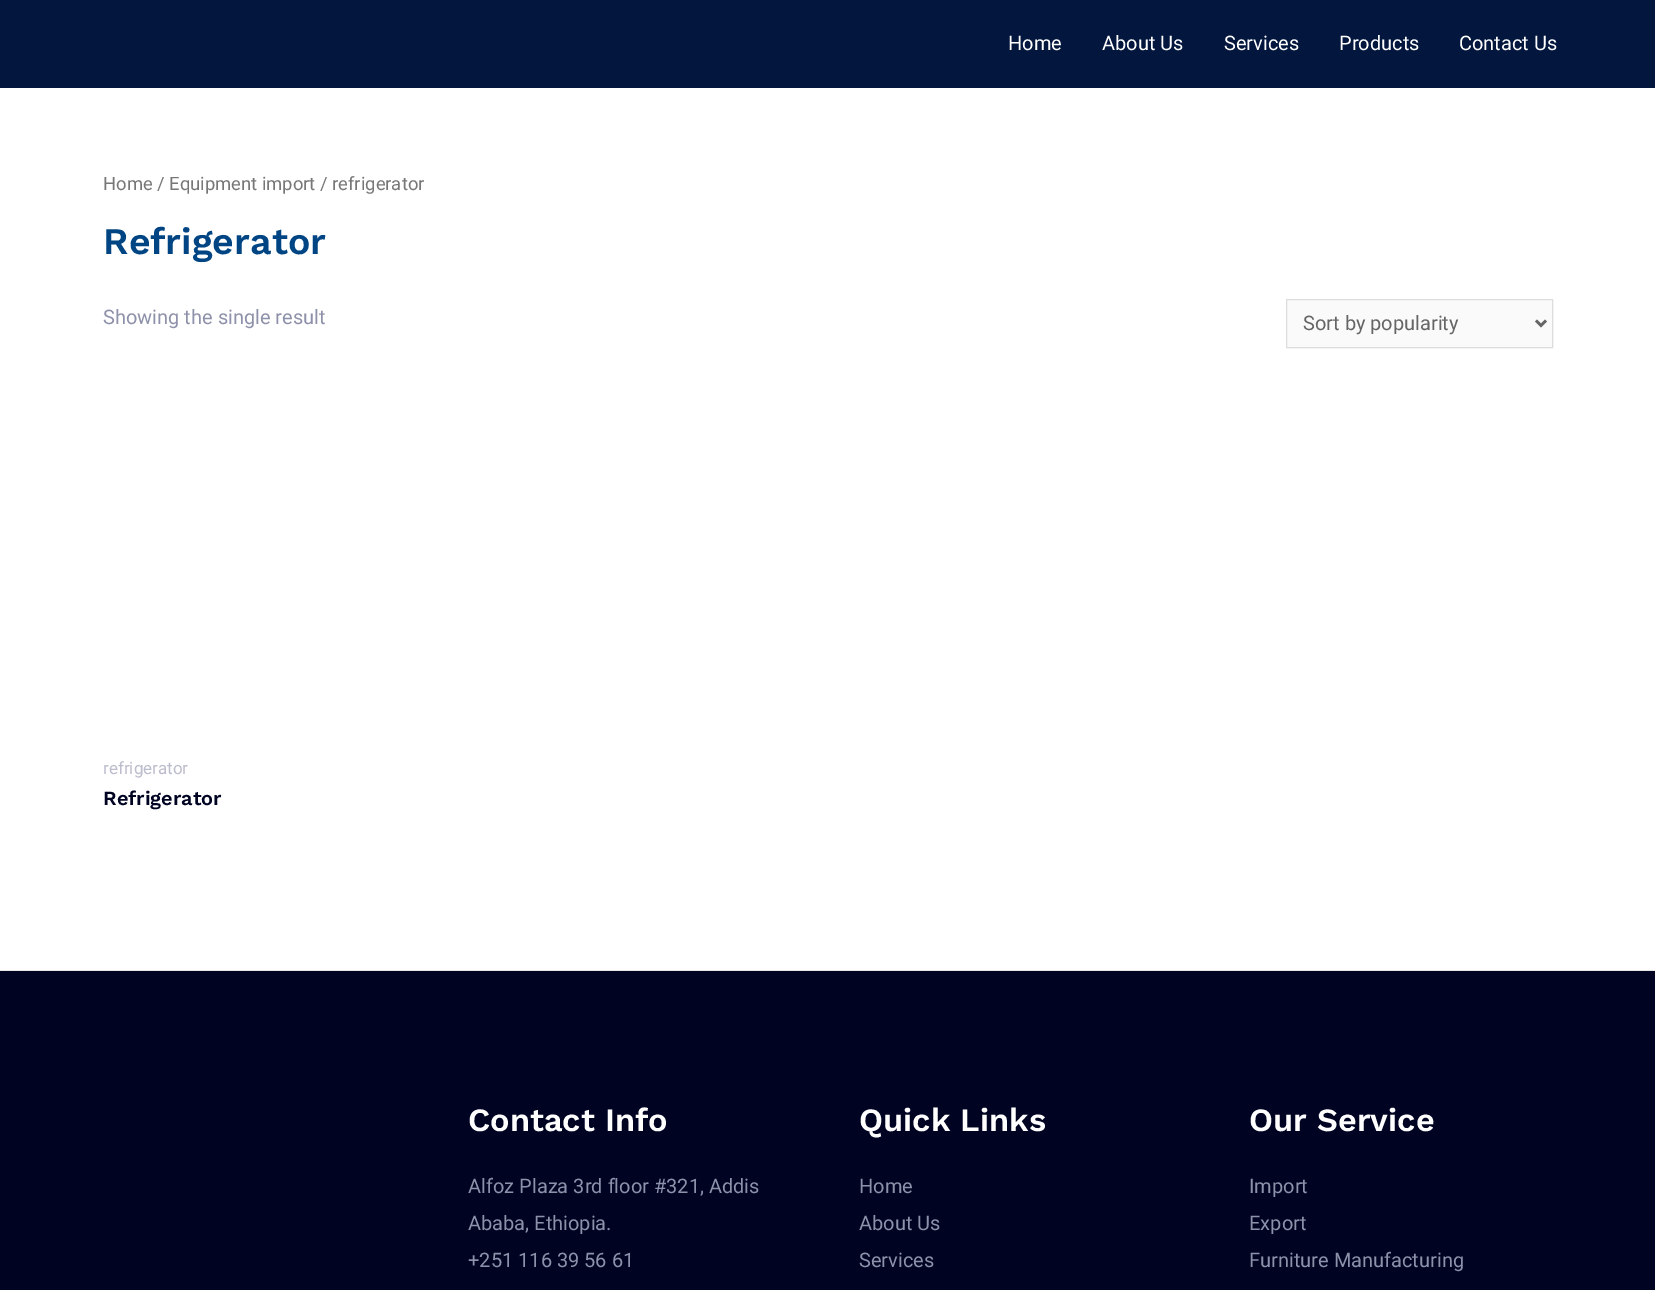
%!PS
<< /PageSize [1655 1290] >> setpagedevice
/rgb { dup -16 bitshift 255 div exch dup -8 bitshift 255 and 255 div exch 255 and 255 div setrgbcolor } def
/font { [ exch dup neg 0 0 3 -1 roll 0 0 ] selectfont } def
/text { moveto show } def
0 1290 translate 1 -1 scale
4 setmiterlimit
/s1 { /Roboto-Regular 20 font 16#FFFFFF rgb } def
/s2 { /Roboto-Regular 18.4 font 16#777777 rgb } def
/s3 { /WorkSans-SemiBold 37.5 font 16#004583 rgb } def
/s4 { /Roboto-Regular 20 font 16#8E91AA rgb } def
/s5 { /Roboto-Regular 20 font 16#666666 rgb } def
/s6 { /Roboto-Regular 17 font 16#BBBDCC rgb } def
/s7 { /WorkSans-SemiBold 20 font 16#000422 rgb } def
/s8 { /WorkSans-SemiBold 32.5 font 16#FFFFFF rgb } def
16#FFFFFF rgb
0 0 1655 1290 rectfill
16#02163E rgb
0 0 1655 88 rectfill
s1
(Home) 1008 50 text
(About Us) 1102 50 text
(Services) 1224 50 text
(Products) 1339 50 text
(Contact Us) 1459 50 text
s2
(Home / Equipment import / refrigerator) 103 190 text
s3
(Refrigerator) 103 254 text
s4
(Showing the single result) 103 324 text
16#FAFAFA rgb
1286.5 299.5 moveto 1552.5 299.5 lineto 1552.5 347.5 lineto 1286.5 347.5 lineto closepath gsave fill grestore
16#DDDDDD rgb
stroke
16#666666 rgb
2.5 setlinewidth
1536 320.5 moveto 1541 325.5 lineto 1546 320.5 lineto stroke
(Sort by popularity) 1303 330 text
s6
(refrigerator) 103 774 text
s7
(Refrigerator) 103 805 text
0 971 1655 319 rectfill
16#E6E6E6 rgb
0 970 1655 1 rectfill
s8
(Contact Info) 468 1131 text
s4
(Alfoz Plaza 3rd floor #321, Addis) 468 1193 text
(Ababa, Ethiopia.) 468 1230 text
(+251 116 39 56 61) 468 1267 text
s8
(Quick Links) 859 1131 text
s4
(Home) 859 1193 text
(About Us) 859 1230 text
(Services) 859 1267 text
s8
(Our Service) 1249 1131 text
s4
(Import) 1249 1193 text
(Export) 1249 1230 text
(Furniture Manufacturing) 1249 1267 text
showpage
